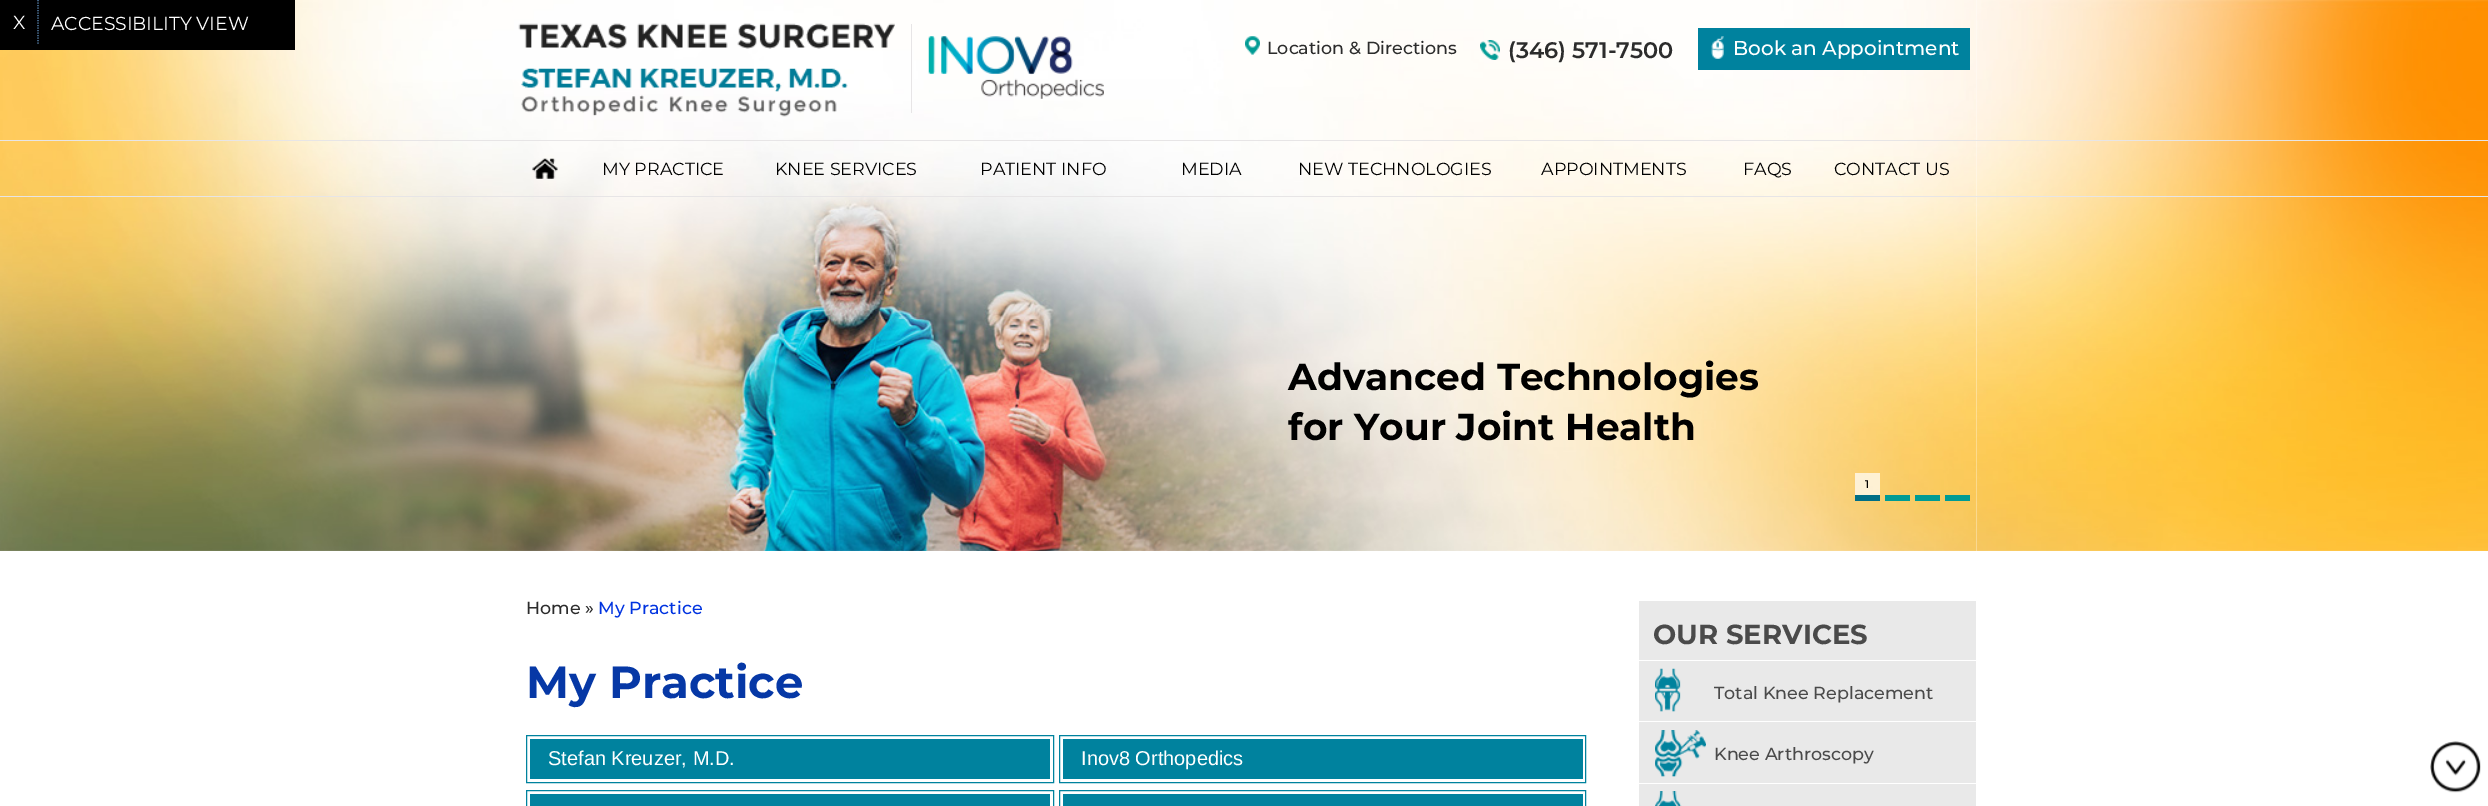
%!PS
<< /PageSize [2488 806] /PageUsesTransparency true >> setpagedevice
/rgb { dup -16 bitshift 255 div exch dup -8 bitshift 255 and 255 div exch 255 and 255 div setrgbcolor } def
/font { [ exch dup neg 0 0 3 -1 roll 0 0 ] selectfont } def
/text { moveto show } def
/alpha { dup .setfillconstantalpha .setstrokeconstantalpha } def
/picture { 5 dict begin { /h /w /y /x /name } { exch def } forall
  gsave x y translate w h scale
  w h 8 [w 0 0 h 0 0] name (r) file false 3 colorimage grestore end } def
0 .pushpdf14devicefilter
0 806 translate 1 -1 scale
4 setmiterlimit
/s1 { /Montserrat-Regular 18.75 font 16#FFFFFF rgb } def
/s2 { /Montserrat-Medium 17.5 font 16#2C2C2C rgb } def
/s3 { /Montserrat-SemiBold 22.5 font 16#2C2C2C rgb } def
/s4 { /Montserrat-Medium 20 font 16#FFFFFF rgb } def
/s5 { /Montserrat-Regular 17.5 font 16#000000 rgb } def
/s6 { /Montserrat-Bold 37.5 font 16#000000 rgb } def
/s7 { /Montserrat-Medium 11 font 16#000000 rgb } def
/s8 { /Montserrat-Medium 17.5 font 16#0033E0 rgb } def
/s9 { /Montserrat-Bold 45 font 16#0638A6 rgb } def
/s10 { /LiberationSans-Regular 20 font 16#FFFFFF rgb } def
/s11 { /Montserrat-Bold 27.5 font 16#4A4A4A rgb } def
/s12 { /Montserrat-Medium 17.5 font 16#4A4A4A rgb } def
16#FFFFFF rgb
0 0 2488 806 rectfill
(pic8.raw) 0 0 514 551 picture
16#000000 rgb
0 0 295 50 rectfill
16#5986B2 rgb
1.2 setlinewidth
[1.25 1.25] 0 setdash
38 0 moveto 38 45 lineto stroke
s1
(X) 13 29 text
(ACCESSIBILITY VIEW) 51 30 text
(pic7.raw) 514 0 1462 551 picture
(pic1.raw) 518 23 377 94 picture
16#E7E5E6 rgb
911 24 1 89 rectfill
(pic2.raw) 928 36 176 63 picture
(pic3.raw) 1245 36 15 19 picture
s2
(Location & Directions) 1267 54 text
(pic4.raw) 1480 40 20 20 picture
s3
(\(346\) 571-7500) 1508 58 text
16#00829E rgb
1698 28 272 42 rectfill
(pic5.raw) 1711 36 13 23 picture
s4
(Book an Appointment) 1733 55 text
(pic9.raw) 1976 0 512 551 picture
16#E7E5E6 rgb
0 140 2488 1 rectfill
0 196 2488 1 rectfill
(pic6.raw) 532 158 26 21 picture
s5
(MY PRACTICE) 602 175 text
(KNEE SERVICES) 775 175 text
(PATIENT INFO) 980 175 text
(MEDIA) 1181 175 text
(NEW TECHNOLOGIES) 1298 175 text
(APPOINTMENTS) 1541 175 text
(FAQS) 1743 175 text
(CONTACT US) 1834 175 text
s6
(Advanced Technologies) 1288 390 text
(for Your Joint Health) 1288 440 text
16#006E86 rgb
1855 495 25 6 rectfill
0.7 alpha
16#FFFFFF rgb
1855 473 25 22 rectfill
1 alpha
s7
(1) 1865 488 text
16#009B94 rgb
1885 495 25 6 rectfill
1915 495 25 6 rectfill
1945 495 25 6 rectfill
s2
(Home ») 526 614 text
s8
(My Practice) 598 614 text
s9
(My Practice) 526 698 text
16#00829E rgb
1 setlinewidth
[] 0 setdash
526.5 735.5 527 47 rectstroke
530 739 520 40 rectfill
s10
(Stefan Kreuzer, M.D.) 548 765 text
16#00829E rgb
1059.5 735.5 526 47 rectstroke
1063 739 520 40 rectfill
s10
(Inov8 Orthopedics) 1081 765 text
16#00829E rgb
526.5 790.5 527 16 rectstroke
530 794 520 12 rectfill
1059.5 790.5 526 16 rectstroke
1063 794 520 12 rectfill
16#E9E9E9 rgb
1639 601 337 59 rectfill
s11
(OUR SERVICES) 1653 644 text
16#E9E9E9 rgb
1639 661 337 122 rectfill
16#FFFFFF rgb
1639 721 337 1 rectfill
(pic10.raw) 1655 668 26 44 picture
s12
(Total Knee Replacement) 1714 699 text
(pic11.raw) 1655 730 51 47 picture
(Knee Arthroscopy) 1714 760 text
16#E9E9E9 rgb
1639 784 337 22 rectfill
(pic12.raw) 1655 791 27 15 picture
(pic13.raw) 2430 741 51 52 picture
.poppdf14devicefilter showpage
